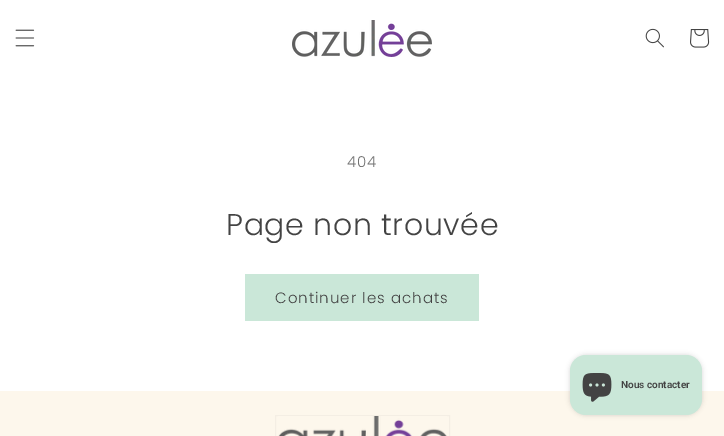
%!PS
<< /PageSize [724 436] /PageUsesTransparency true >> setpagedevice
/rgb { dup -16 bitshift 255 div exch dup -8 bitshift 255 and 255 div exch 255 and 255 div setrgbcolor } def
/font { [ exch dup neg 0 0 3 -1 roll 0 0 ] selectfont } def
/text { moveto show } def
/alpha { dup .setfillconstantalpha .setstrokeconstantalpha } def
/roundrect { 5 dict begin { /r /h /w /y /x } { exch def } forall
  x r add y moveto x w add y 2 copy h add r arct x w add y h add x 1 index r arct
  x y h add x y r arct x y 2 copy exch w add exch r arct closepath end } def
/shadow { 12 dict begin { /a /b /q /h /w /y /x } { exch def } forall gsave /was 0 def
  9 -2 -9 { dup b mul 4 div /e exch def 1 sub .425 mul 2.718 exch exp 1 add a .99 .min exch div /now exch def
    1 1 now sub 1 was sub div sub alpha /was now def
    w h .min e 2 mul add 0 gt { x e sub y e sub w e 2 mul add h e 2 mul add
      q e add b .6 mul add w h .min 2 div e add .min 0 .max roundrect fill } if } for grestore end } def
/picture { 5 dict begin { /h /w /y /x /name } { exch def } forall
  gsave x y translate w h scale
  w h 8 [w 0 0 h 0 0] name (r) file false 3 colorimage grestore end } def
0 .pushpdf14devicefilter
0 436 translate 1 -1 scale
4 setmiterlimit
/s1 { /Roboto-SemiBold 10 font 16#434343 rgb } def
16#FFFFFF rgb
0 0 724 436 rectfill
(pic1.raw) 15 29 20 18 picture
(pic2.raw) 292 20 140 37 picture
(pic3.raw) 645 28 19 20 picture
(pic4.raw) 690 29 20 19 picture
/Poppins-Light 15 font
16#727272 rgb
347 167 moveto 0.6 0 (404) ashow
/Poppins-Light 30 font
16#434343 rgb
226 235 moveto 0.6 0 (Page non trouvée) ashow
16#CAE7D8 rgb
245 274 234 47 rectfill
/Poppins-Light 15 font
16#434343 rgb
275 303 moveto 1 0 (Continuer les achats) ashow
16#FDF7EC rgb
0 391 724 45 rectfill
16#000000 rgb
570 355 132 60 16 2.5 0.15 shadow
16#CAE7D8 rgb
570 355 132 60 16 roundrect fill
(pic5.raw) 582 373 30 29 picture
s1
(Nous contacter) 621 388 text
16#F4EEE4 rgb
275.5 415.5 174 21 rectstroke
(pic6.raw) 278 416 169 20 picture
.poppdf14devicefilter showpage
